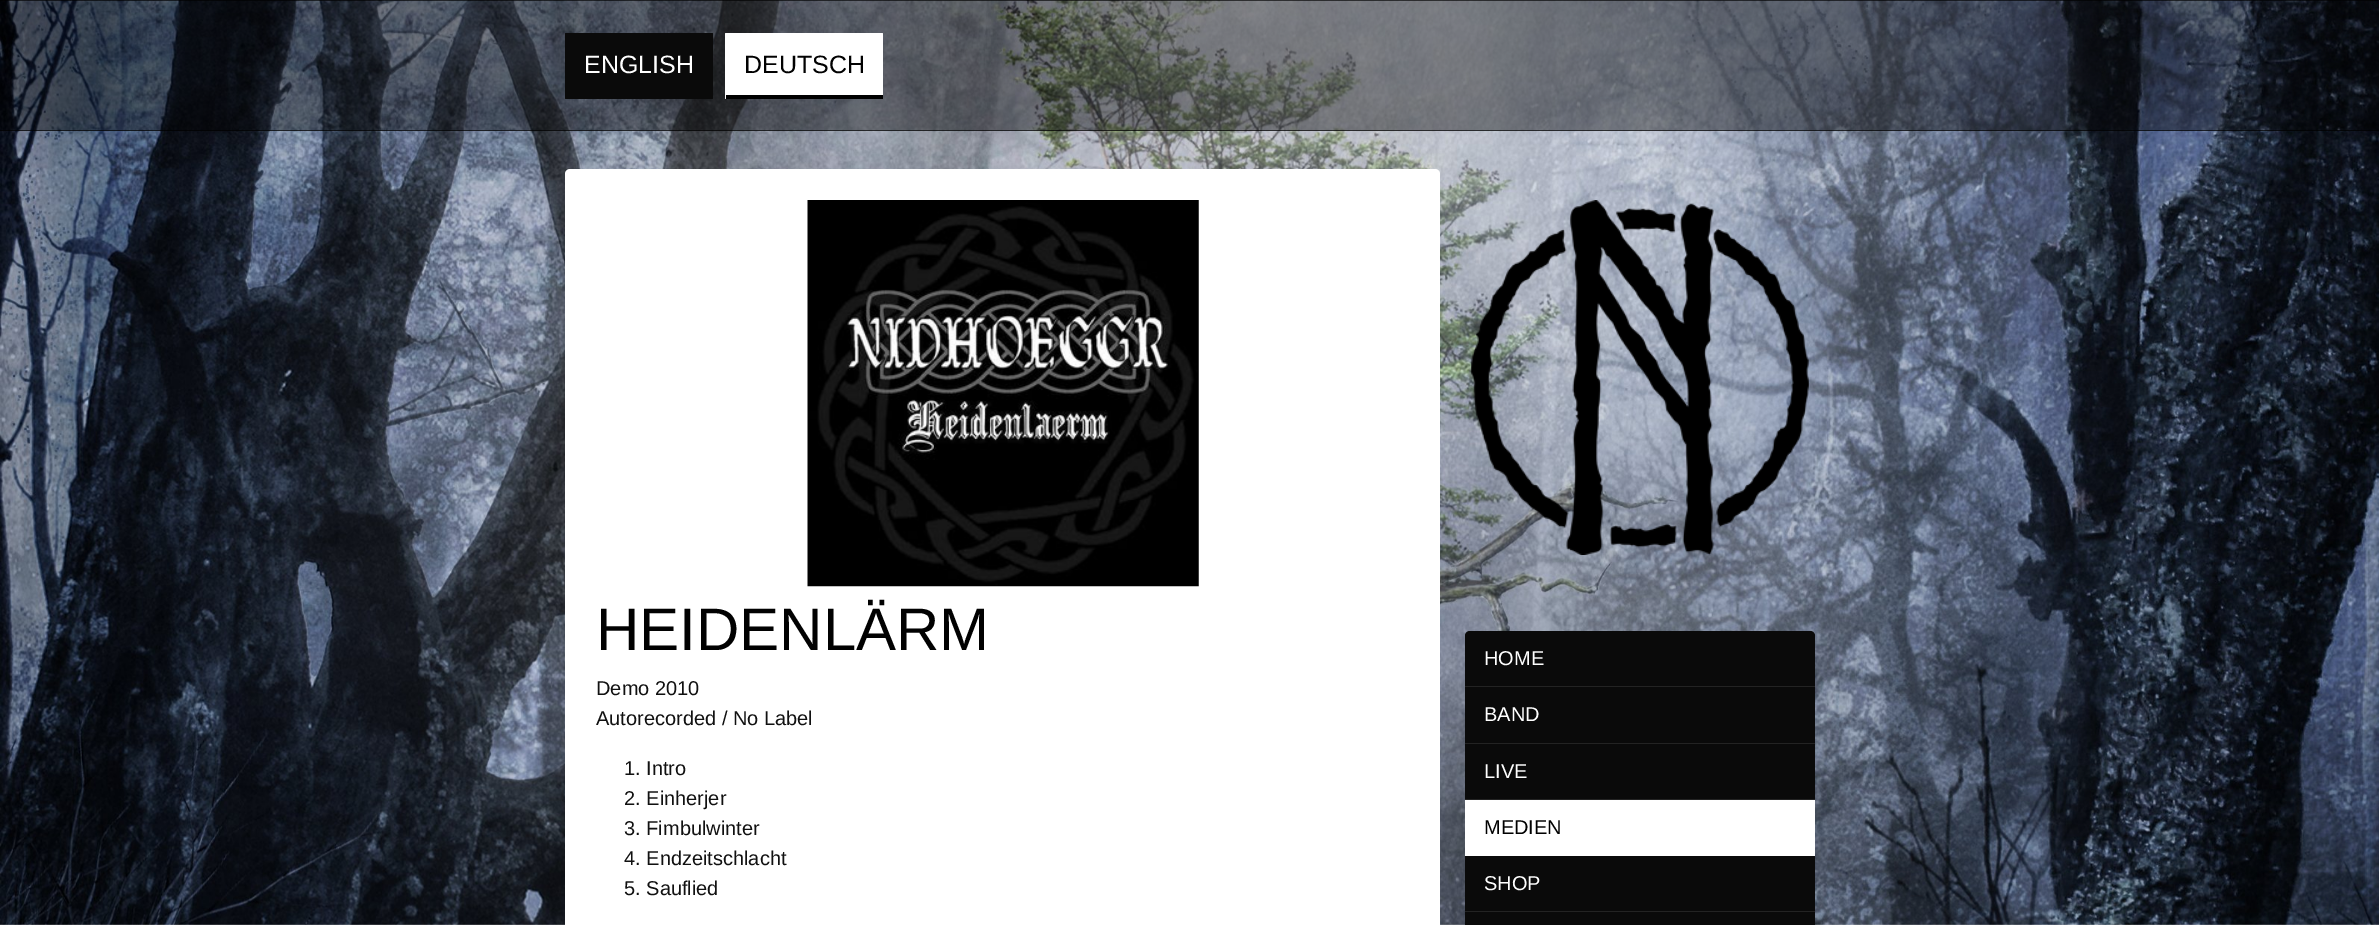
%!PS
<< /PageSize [2379 925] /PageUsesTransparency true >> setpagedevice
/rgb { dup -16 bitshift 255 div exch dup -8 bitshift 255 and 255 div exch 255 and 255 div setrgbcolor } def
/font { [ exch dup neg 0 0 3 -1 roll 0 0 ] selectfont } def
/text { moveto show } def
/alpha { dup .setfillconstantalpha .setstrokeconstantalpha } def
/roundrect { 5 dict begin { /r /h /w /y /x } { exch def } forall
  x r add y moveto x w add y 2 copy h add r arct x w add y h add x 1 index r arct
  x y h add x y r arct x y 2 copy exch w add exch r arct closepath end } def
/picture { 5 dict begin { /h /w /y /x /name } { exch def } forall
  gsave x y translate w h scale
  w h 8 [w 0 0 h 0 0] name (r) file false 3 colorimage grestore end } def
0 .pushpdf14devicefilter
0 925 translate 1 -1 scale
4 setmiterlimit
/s1 { /Arimo-Regular 25 font 16#FFFFFF rgb } def
/s2 { /Arimo-Regular 25 font 16#010101 rgb } def
/s3 { /Arimo-Regular 60 font 16#010101 rgb } def
/s4 { /Arimo-Regular 20 font 16#111111 rgb } def
/s5 { /Arimo-Regular 20 font 16#FFFFFF rgb } def
/s6 { /Arimo-Regular 20 font 16#010101 rgb } def
16#FFFFFF rgb
0 0 2379 925 rectfill
(pic1.raw) 0 0 2379 925 picture
0.4 alpha
16#000000 rgb
0 0 2379 131 rectfill
0.63 alpha
0 0 2379 1 rectfill
0 130 2379 1 rectfill
1 alpha
16#0A0A0A rgb
565 33 148 66 1 roundrect fill
s1
(ENGLISH) 584 73 text
725 33 158 66 1 roundrect fill
16#000000 rgb
726 95 157 4 rectfill
s2
(DEUTSCH) 744 73 text
(pic2.raw) 1471 200 338 355 picture
16#FFFFFF rgb
565 169 875 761 5 roundrect fill
(pic3.raw) 807 200 392 387 picture
s3
(HEIDENLÄRM) 596 650 text
s4
(Demo 2010) 596 695 text
(Autorecorded / No Label) 596 725 text
(1. Intro) 624 775 text
(2. Einherjer) 624 805 text
(3. Fimbulwinter) 624 835 text
(4. Endzeitschlacht) 624 865 text
(5. Sauflied) 624 895 text
16#0A0A0A rgb
1470 631 moveto 1810 631 lineto 1813 631 1815 633 1815 636 curveto 1815 688 lineto 1465 688 lineto 1465 636 lineto 1465 633 1467 631 1470 631 curveto closepath fill
16#232323 rgb
1465 686 350 1 rectfill
s5
(HOME) 1484 665 text
16#0A0A0A rgb
1465 688 350 55 rectfill
16#232323 rgb
1465 743 350 1 rectfill
s5
(BAND) 1484 721 text
16#0A0A0A rgb
1465 744 350 55 rectfill
16#232323 rgb
1465 799 350 1 rectfill
s5
(LIVE) 1484 778 text
1465 800 350 56 rectfill
s6
(MEDIEN) 1484 834 text
16#0A0A0A rgb
1465 856 350 69 rectfill
16#232323 rgb
1465 911 350 1 rectfill
s5
(SHOP) 1484 890 text
.poppdf14devicefilter showpage
